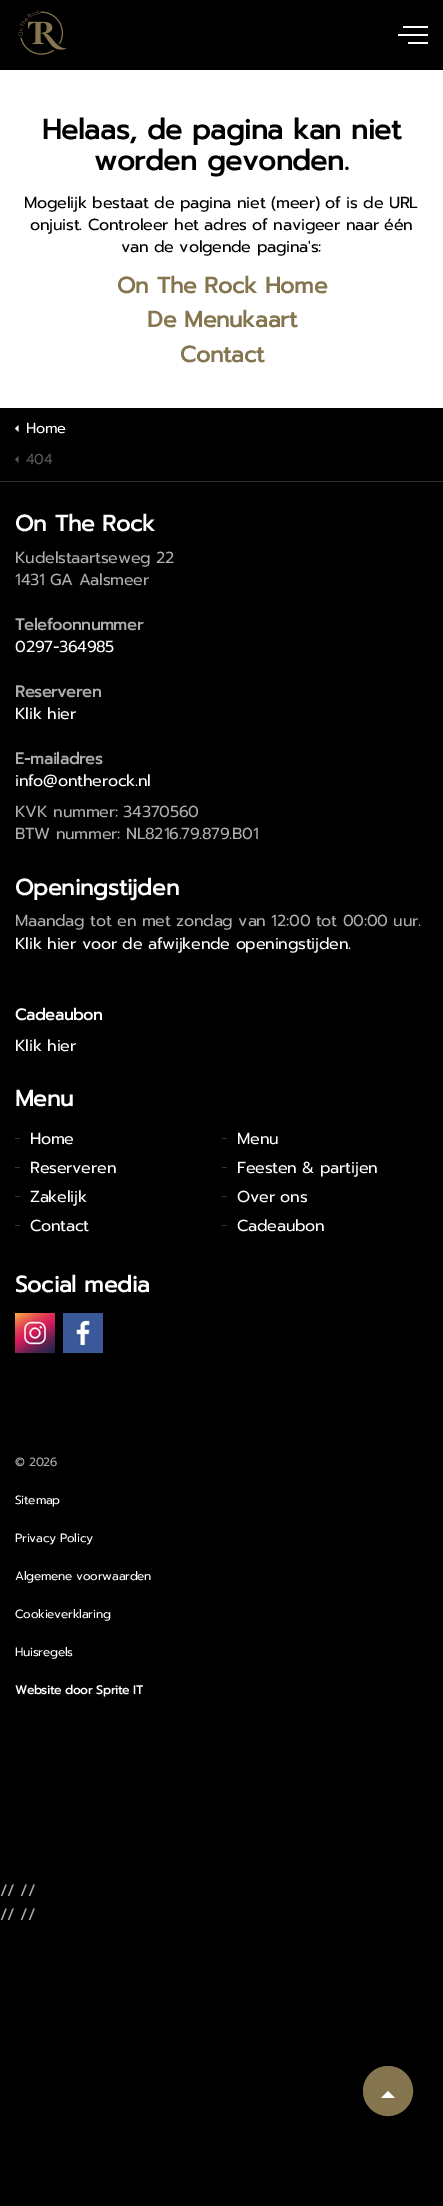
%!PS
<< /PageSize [443 2206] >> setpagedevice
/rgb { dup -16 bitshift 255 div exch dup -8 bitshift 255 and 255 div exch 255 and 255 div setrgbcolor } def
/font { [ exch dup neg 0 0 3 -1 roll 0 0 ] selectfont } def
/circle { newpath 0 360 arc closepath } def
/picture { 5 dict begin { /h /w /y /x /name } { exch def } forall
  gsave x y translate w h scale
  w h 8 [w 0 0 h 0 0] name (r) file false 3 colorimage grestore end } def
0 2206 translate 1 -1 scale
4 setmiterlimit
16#000000 rgb
0 0 443 2206 rectfill
(pic1.raw) 18 9 49 46 picture
16#FFFFFF rgb
398 34 30 2 rectfill
403 26 25 2 rectfill
408 42 20 2 rectfill
0 70 443 338 rectfill
/Prompt-Bold 28 font
16#000000 rgb
42 139 moveto -0.25 0 (Helaas, de pagina kan niet) ashow
94 170 moveto -0.25 0 (worden gevonden.) ashow
/Prompt-Regular 16 font
24 208 moveto -0.25 0 (Mogelijk bestaat de pagina niet \(meer\) of is de URL) ashow
30 230 moveto -0.25 0 (onjuist. Controleer het adres of navigeer naar één) ashow
121 252 moveto -0.25 0 (van de volgende pagina's:) ashow
/Prompt-Bold 22.5 font
16#84754E rgb
117 293 moveto -0.25 0 (On The Rock Home) ashow
147 327 moveto -0.25 0 (De Menukaart) ashow
180 362 moveto -0.25 0 (Contact) ashow
16#333333 rgb
0 481 443 1 rectfill
16#FFFFFF rgb
18.5 425 moveto 18.5 432 lineto 15 428.5 lineto closepath fill
/Prompt-Regular 14.5 font
26 433 moveto -0.25 0 (Home) ashow
16#575757 rgb
18.5 456 moveto 18.5 463 lineto 15 459.5 lineto closepath fill
26 464 moveto -0.25 0 (404) ashow
/Prompt-Bold 22.5 font
16#FFFFFF rgb
15 531 moveto -0.25 0 (On The Rock) ashow
/Prompt-Regular 16 font
16#ADADAD rgb
15 563 moveto -0.25 0 (Kudelstaartseweg 22) ashow
15 585 moveto -0.25 0 (1431 GA Aalsmeer) ashow
/Prompt-Bold 16 font
15 630 moveto -0.25 0 (Telefoonnummer) ashow
/Prompt-Regular 16 font
16#FFFFFF rgb
15 652 moveto -0.25 0 (0297-364985) ashow
/Prompt-Bold 16 font
16#ADADAD rgb
15 697 moveto -0.25 0 (Reserveren) ashow
/Prompt-Regular 16 font
16#FFFFFF rgb
15 719 moveto -0.25 0 (Klik hier) ashow
/Prompt-Bold 16 font
16#ADADAD rgb
15 764 moveto -0.25 0 (E-mailadres) ashow
/Prompt-Regular 16 font
16#FFFFFF rgb
15 786 moveto -0.25 0 (info@ontherock.nl) ashow
16#ADADAD rgb
15 817 moveto -0.25 0 (KVK nummer: 34370560) ashow
15 839 moveto -0.25 0 (BTW nummer: NL8216.79.879.B01) ashow
/Prompt-Bold 22.5 font
16#FFFFFF rgb
15 895 moveto -0.25 0 (Openingstijden) ashow
/Prompt-Regular 16 font
16#ADADAD rgb
15 926 moveto -0.25 0 (Maandag tot en met zondag van 12:00 tot 00:00 uur.) ashow
16#FFFFFF rgb
15 949 moveto -0.25 0 (Klik hier voor de afwijkende openingstijden.) ashow
/Prompt-Bold 16 font
15 1020 moveto -0.25 0 (Cadeaubon) ashow
/Prompt-Regular 16 font
15 1051 moveto -0.25 0 (Klik hier) ashow
/Prompt-Bold 22.5 font
15 1106 moveto -0.25 0 (Menu) ashow
16#343434 rgb
15 1138 5 1 rectfill
/Prompt-Regular 16 font
16#FFFFFF rgb
30 1144 moveto -0.25 0 (Home) ashow
16#343434 rgb
222 1138 5 1 rectfill
16#FFFFFF rgb
237 1144 moveto -0.25 0 (Menu) ashow
16#343434 rgb
15 1167 5 1 rectfill
16#FFFFFF rgb
30 1173 moveto -0.25 0 (Reserveren) ashow
16#343434 rgb
222 1167 5 1 rectfill
16#FFFFFF rgb
237 1173 moveto -0.25 0 (Feesten & partijen) ashow
16#343434 rgb
15 1196 5 1 rectfill
16#FFFFFF rgb
30 1202 moveto -0.25 0 (Zakelijk) ashow
16#343434 rgb
222 1196 5 1 rectfill
16#FFFFFF rgb
237 1202 moveto -0.25 0 (Over ons) ashow
16#343434 rgb
15 1225 5 1 rectfill
16#FFFFFF rgb
30 1231 moveto -0.25 0 (Contact) ashow
16#343434 rgb
222 1225 5 1 rectfill
16#FFFFFF rgb
237 1231 moveto -0.25 0 (Cadeaubon) ashow
/Prompt-Bold 22.5 font
15 1292 moveto -0.25 0 (Social media) ashow
(pic2.raw) 15 1313 40 40 picture
(pic3.raw) 63 1313 40 40 picture
/Prompt-Regular 12 font
16#ADADAD rgb
15 1466 moveto -0.25 0 (© 2026) ashow
16#FFFFFF rgb
15 1504 moveto -0.25 0 (Sitemap) ashow
15 1542 moveto -0.25 0 (Privacy Policy) ashow
15 1580 moveto -0.25 0 (Algemene voorwaarden) ashow
15 1618 moveto -0.25 0 (Cookieverklaring) ashow
15 1656 moveto -0.25 0 (Huisregels) ashow
/Prompt-Bold 12 font
15 1694 moveto -0.25 0 (Website door Sprite IT) ashow
/Prompt-Regular 16 font
16#ADADAD rgb
0 1896 moveto -0.25 0 (// //) ashow
0 1920 moveto -0.25 0 (// //) ashow
16#84754E rgb
388 2091 24.5 circle gsave fill grestore
stroke
16#FFFFFF rgb
381 2098 moveto 388 2091 lineto 395 2098 lineto closepath fill
showpage
